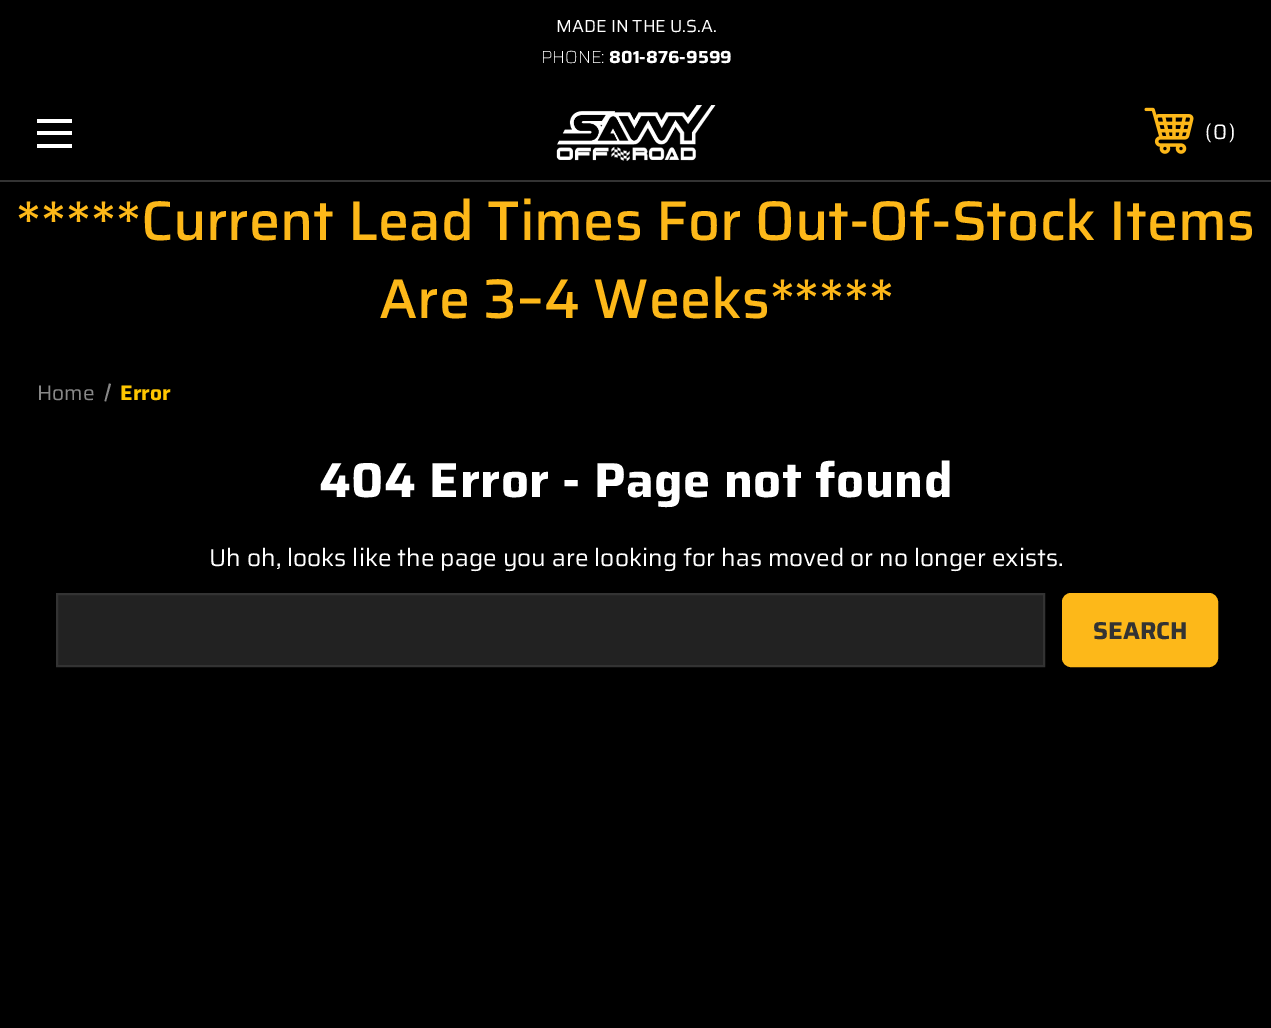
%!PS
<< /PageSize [1271 1028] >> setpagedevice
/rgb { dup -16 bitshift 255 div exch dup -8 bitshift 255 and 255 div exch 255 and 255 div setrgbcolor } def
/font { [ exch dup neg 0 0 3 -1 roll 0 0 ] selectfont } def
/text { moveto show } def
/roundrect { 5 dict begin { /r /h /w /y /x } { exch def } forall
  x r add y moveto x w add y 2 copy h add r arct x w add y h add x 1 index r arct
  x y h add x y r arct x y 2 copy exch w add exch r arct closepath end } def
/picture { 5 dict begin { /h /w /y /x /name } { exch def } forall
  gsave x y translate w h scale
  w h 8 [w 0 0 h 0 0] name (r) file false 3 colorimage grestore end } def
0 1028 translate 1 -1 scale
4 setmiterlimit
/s1 { /Saira-Regular 17.5 font 16#FFFFFF rgb } def
/s2 { /Saira-ExtraLight 17.5 font 16#FFFFFF rgb } def
/s3 { /Saira-Bold 17.5 font 16#FFFFFF rgb } def
/s4 { /Saira-Regular 21 font 16#FFFFFF rgb } def
/s5 { /Saira-Medium 56 font 16#FDB819 rgb } def
/s6 { /Saira-Regular 21 font 16#888888 rgb } def
/s7 { /Saira-Bold 21 font 16#FFC600 rgb } def
/s8 { /Saira-Regular 24.5 font 16#FFFFFF rgb } def
/s9 { /Saira-Bold 24.5 font 16#333333 rgb } def
16#000000 rgb
0 0 1271 1028 rectfill
s1
(MADE IN THE U.S.A.) 556 32 text
s2
(PHONE:) 541 63 text
s3
(801-876-9599) 609 63 text
16#333333 rgb
0 180 1271 2 rectfill
16#FFFFFF rgb
37 131 35 4 rectfill
37 119 35 4 rectfill
37 144 35 4 rectfill
(pic1.raw) 556 105 160 56 picture
(pic2.raw) 1144 107 50 47 picture
s4
(\() 1205 139 text
(0) 1213 139 text
(\)) 1229 139 text
s5
(*****Current Lead Times For Out-Of-Stock Items) 16 240 text
(Are 3–4 Weeks*****) 379 318 text
s6
(Home) 37 400 text
109 383.5 moveto 111 384 lineto 106 401.5 lineto 104.5 401 lineto closepath fill
s7
(Error) 120 400 text
/Saira-Bold 49 font
16#FFFFFF rgb
319 497 moveto 0.45 0 (404 Error - Page not found) ashow
s8
(Uh oh, looks like the page you are looking for has moved or no longer exists.) 209 566 text
16#222222 rgb
57 594 moveto 1044 594 lineto 1044 666 lineto 57 666 lineto closepath gsave fill grestore
16#333333 rgb
2 setlinewidth
stroke
16#FDB819 rgb
1063 594 154 72 8 roundrect gsave fill grestore
stroke
s9
(SEARCH) 1093 639 text
showpage
